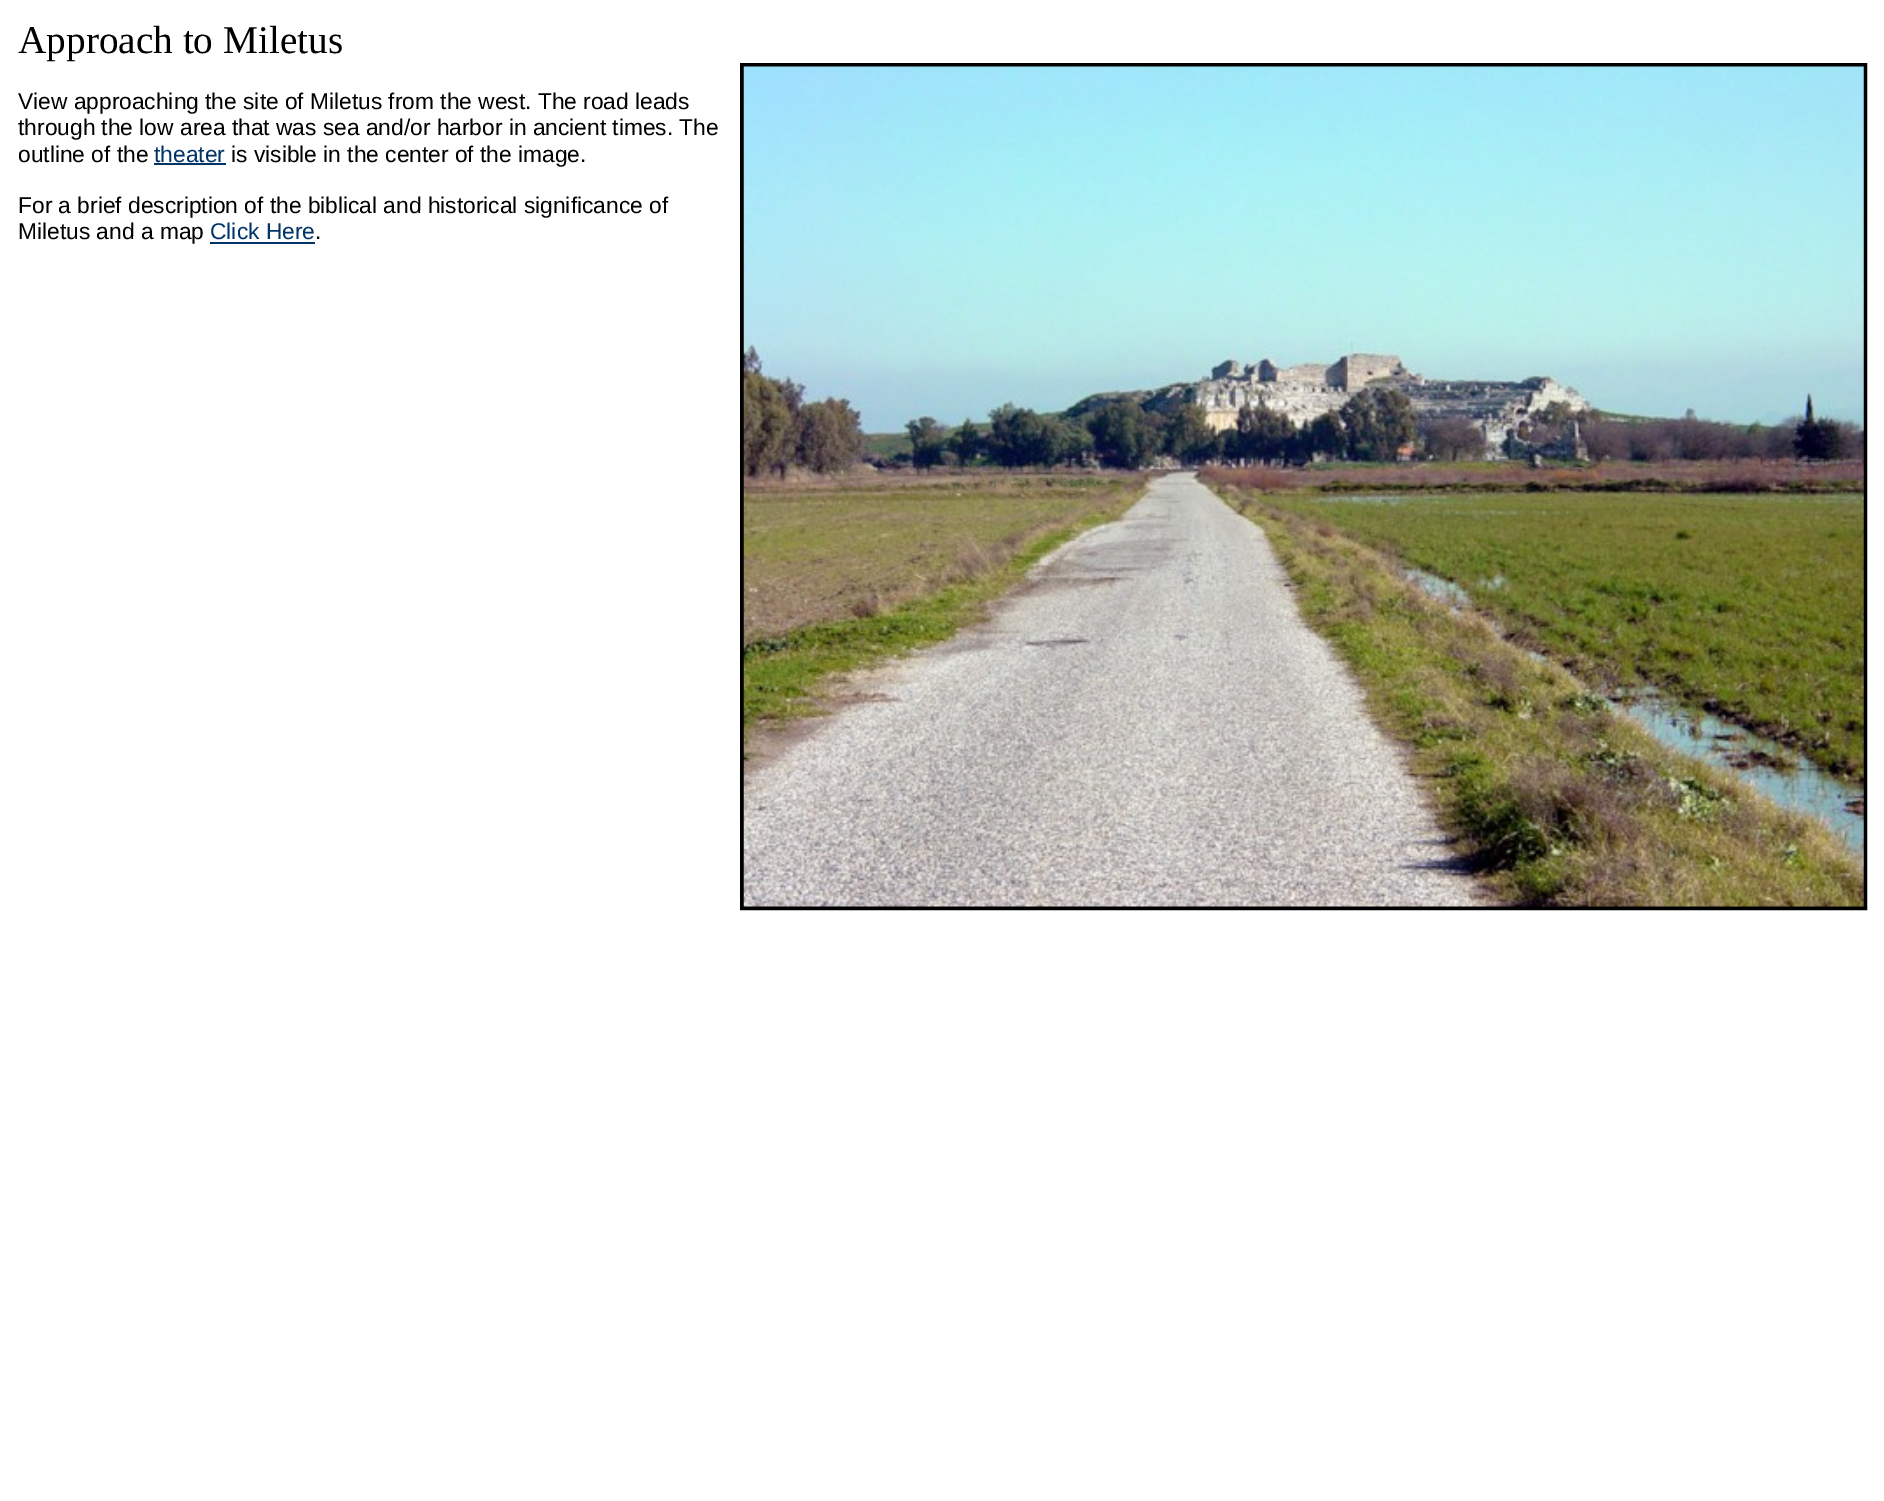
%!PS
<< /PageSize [1884 1501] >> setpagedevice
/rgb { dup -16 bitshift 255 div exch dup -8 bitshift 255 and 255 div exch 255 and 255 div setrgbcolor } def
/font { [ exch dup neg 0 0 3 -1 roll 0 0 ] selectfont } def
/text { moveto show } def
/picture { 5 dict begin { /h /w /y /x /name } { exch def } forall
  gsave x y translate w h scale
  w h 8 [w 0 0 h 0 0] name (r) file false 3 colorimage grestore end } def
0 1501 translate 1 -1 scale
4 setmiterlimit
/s1 { /LiberationSerif-Regular 39.25 font 16#000000 rgb } def
/s2 { /LiberationSans-Regular 22.75 font 16#000000 rgb } def
/s3 { /LiberationSans-Regular 22.75 font 16#003366 rgb } def
16#FFFFFF rgb
0 0 1884 1501 rectfill
s1
(Approach to Miletus) 18 53 text
s2
(View approaching the site of Miletus from the west. The road leads) 18 109 text
(through the low area that was sea and/or harbor in ancient times. The) 18 135 text
(outline of the) 18 162 text
s3
(theater) 154 162 text
154 163 72 2 rectfill
s2
(is visible in the center of the image.) 231 162 text
4 setlinewidth
742 65 1123 843 rectstroke
(pic1.raw) 743 66 1121 841 picture
(For a brief description of the biblical and historical significance of) 18 213 text
(Miletus and a map) 18 239 text
s3
(Click Here) 210 239 text
s2
(.) 315 239 text
16#003366 rgb
210 242 105 2 rectfill
showpage
